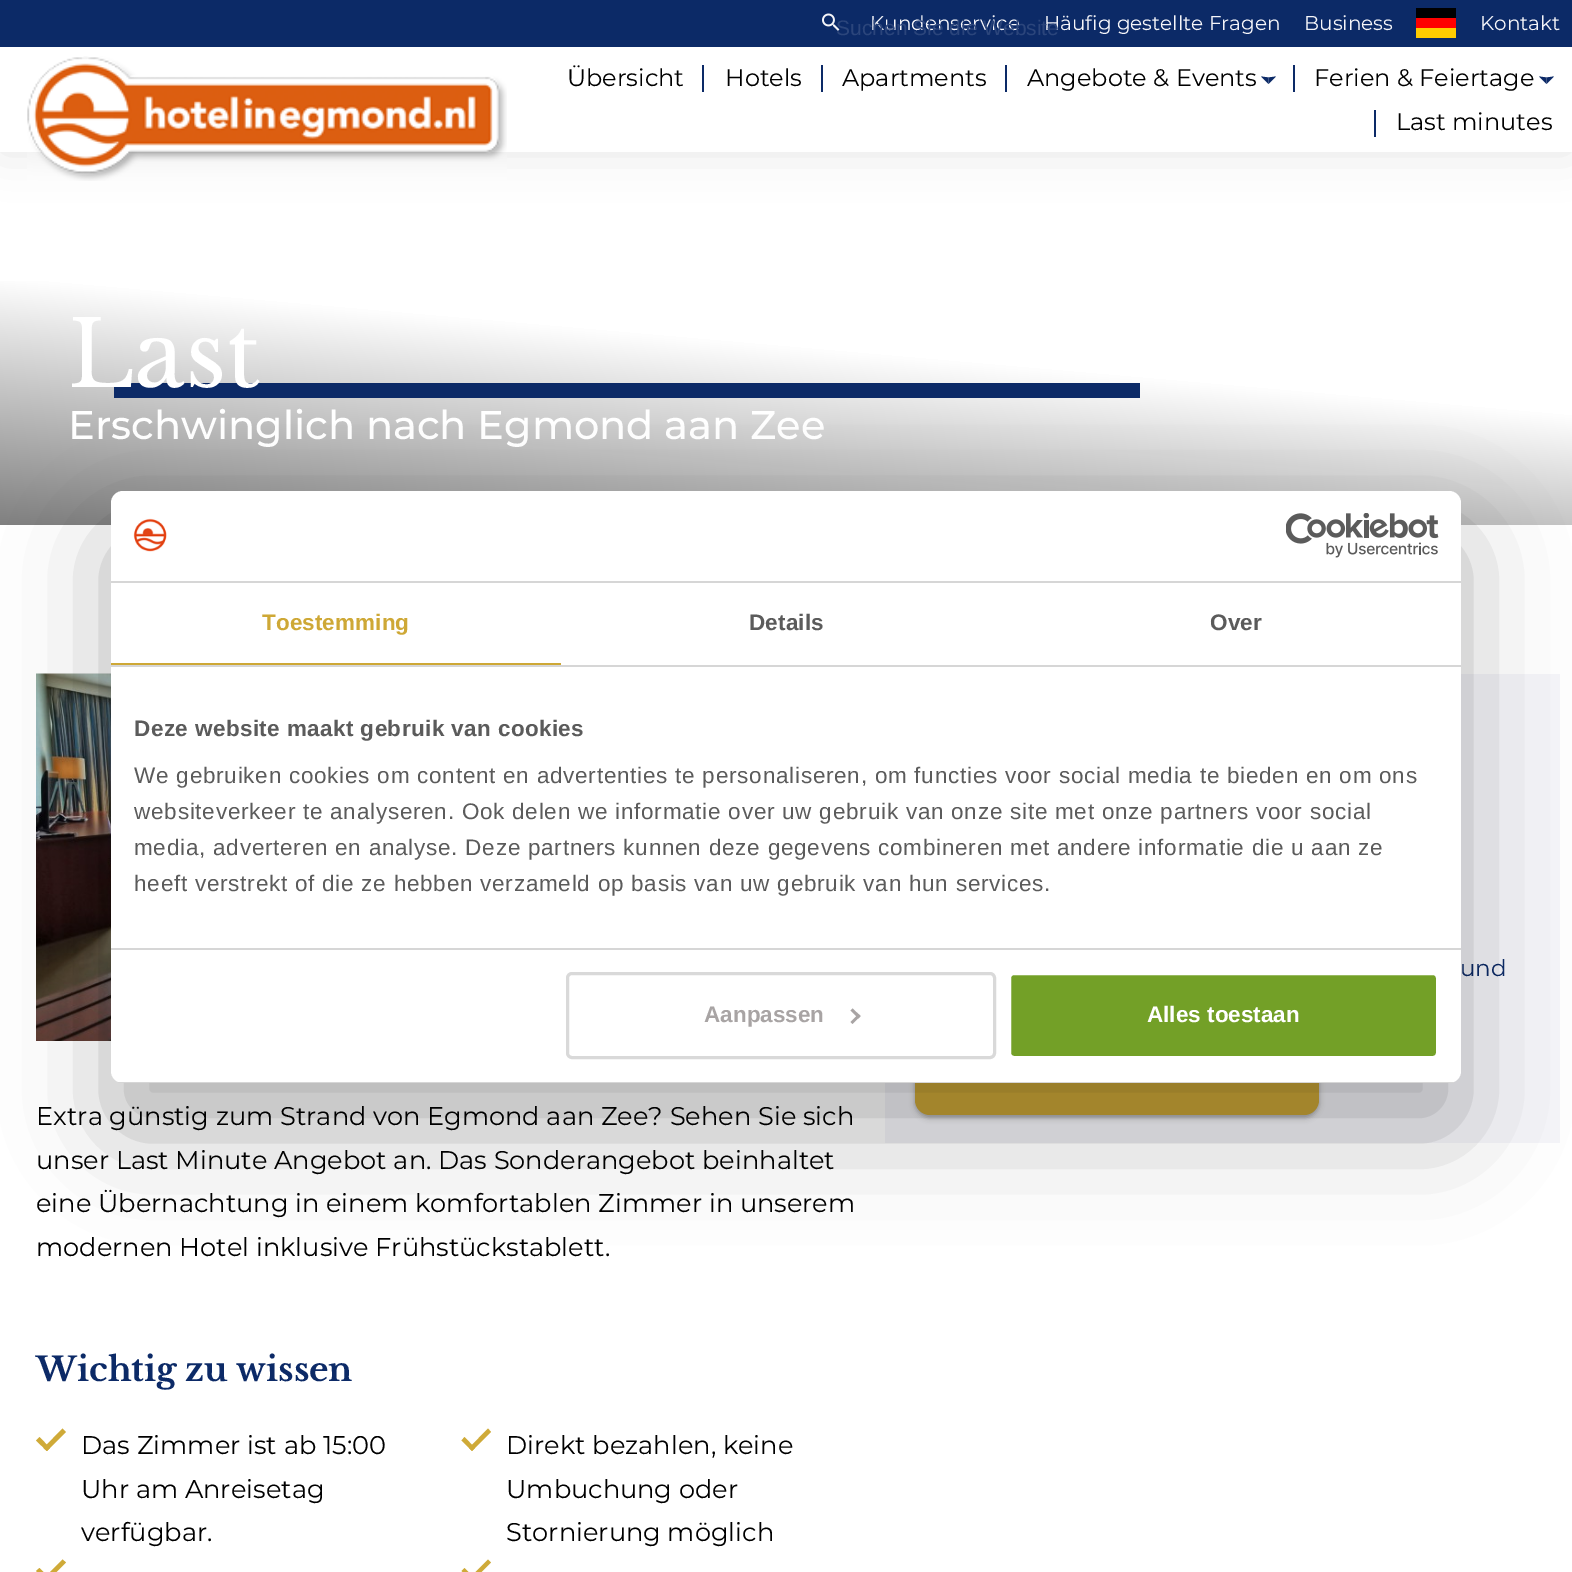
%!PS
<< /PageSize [1572 1572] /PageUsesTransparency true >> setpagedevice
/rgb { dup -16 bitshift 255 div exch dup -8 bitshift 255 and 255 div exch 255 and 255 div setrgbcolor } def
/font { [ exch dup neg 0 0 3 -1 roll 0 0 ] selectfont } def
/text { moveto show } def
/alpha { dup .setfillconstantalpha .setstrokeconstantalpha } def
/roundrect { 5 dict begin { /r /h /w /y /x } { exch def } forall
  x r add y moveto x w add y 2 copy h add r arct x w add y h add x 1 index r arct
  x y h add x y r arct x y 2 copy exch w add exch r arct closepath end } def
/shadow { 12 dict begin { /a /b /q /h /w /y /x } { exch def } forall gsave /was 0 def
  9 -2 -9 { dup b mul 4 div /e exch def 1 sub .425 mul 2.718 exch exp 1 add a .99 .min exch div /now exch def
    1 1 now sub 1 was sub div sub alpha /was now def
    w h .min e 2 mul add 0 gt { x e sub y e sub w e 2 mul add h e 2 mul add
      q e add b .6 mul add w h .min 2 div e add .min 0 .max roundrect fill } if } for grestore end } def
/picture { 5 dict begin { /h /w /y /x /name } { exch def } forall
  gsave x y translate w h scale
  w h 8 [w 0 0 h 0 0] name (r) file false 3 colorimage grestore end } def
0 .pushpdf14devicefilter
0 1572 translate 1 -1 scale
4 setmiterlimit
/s1 { /Montserrat-Regular 20 font 16#F5F5F9 rgb } def
/s2 { /LiberationSans-Regular 21 font 16#2B457B rgb } def
/s3 { /Montserrat-Regular 24 font 16#000000 rgb } def
/s4 { /LibreBaskerville-Regular 91 font 16#FFFFFF rgb } def
/s5 { /Montserrat-Medium 39.9 font 16#FFFFFF rgb } def
/s6 { /Montserrat-Regular 23 font 16#0C2A67 rgb } def
/s7 { /Montserrat-Regular 25.65 font 16#000000 rgb } def
/s8 { /LibreBaskerville-Bold 33.25 font 16#0C2A67 rgb } def
/s9 { /LiberationSans-Bold 22.5 font 16#A8A4A4 rgb } def
/s10 { /LiberationSans-Bold 22.5 font 16#FFFFFF rgb } def
16#FFFFFF rgb
0 0 1572 1572 rectfill
gsave
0 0 moveto 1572 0 lineto 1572 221 lineto 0 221 lineto closepath 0 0 moveto 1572 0 lineto 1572 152 lineto 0 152 lineto closepath eoclip newpath
16#000000 rgb
0 0 1572 152 0 22.5 0.1 shadow
grestore
16#0C2A67 rgb
0 0 1572 47 rectfill
s1
(Kundenservice) 870 30 text
(Häufig gestellte Fragen) 1044 30 text
(Business) 1304 30 text
16#000000 rgb
1416 8 40 10 rectfill
16#FF0000 rgb
1416 18 40 10 rectfill
16#FFCC00 rgb
1416 28 40 10 rectfill
s1
(Kontakt) 1480 30 text
(pic1.raw) 822 13 18 18 picture
s2
(Suchen Sie die Website) 836 35 text
0.95 alpha
16#FFFFFF rgb
0 151 1572 1 rectfill
1 alpha
(pic2.raw) 27 56 480 125 picture
s3
(Übersicht) 567 86 text
16#0C2A67 rgb
702 65 2 27 rectfill
s3
(Hotels) 725 86 text
16#0C2A67 rgb
821 65 2 27 rectfill
s3
(Apartments) 842 86 text
16#0C2A67 rgb
1005 65 2 27 rectfill
s3
(Angebote & Events) 1027 86 text
16#0C2A67 rgb
1276 76.5 moveto 1268.5 84 lineto 1268.5 77.5 lineto closepath fill
1268.5 84 moveto 1261 76.5 lineto 1268.5 77.5 lineto closepath fill
1293 65 2 27 rectfill
s3
(Ferien & Feiertage) 1314 86 text
16#0C2A67 rgb
1554 76.5 moveto 1546.5 84 lineto 1546.5 77.5 lineto closepath fill
1546.5 84 moveto 1539 76.5 lineto 1546.5 77.5 lineto closepath fill
1374 110 2 27 rectfill
s3
(Last minutes) 1396 130 text
gsave 0 281 moveto 1572 281 lineto 1572 525 lineto 0 525 lineto closepath clip newpath
<< /ShadingType 2 /ColorSpace /DeviceRGB /Coords [805 159 767 592] /Extend [true true] /Function << /FunctionType 3 /Domain [0 1] /Functions [<< /FunctionType 2 /Domain [0 1] /C0 [1 1 1] /C1 [1 1 1] /N 1 >> << /FunctionType 2 /Domain [0 1] /C0 [1 1 1] /C1 [0.502 0.502 0.502] /N 1 >>] /Bounds [0.43] /Encode [0 1 0 1] >> >> shfill grestore
16#0C2A67 rgb
114 383 1026 15 rectfill
s4
(Last) 68 387 text
s5
(Erschwinglich nach Egmond aan Zee) 68 439 text
16#F5F5F9 rgb
885 674 675 469 rectfill
s6
(und) 1460 976 text
16#000000 rgb
915 1053 404 65 15 3 0.3 shadow
16#CEA836 rgb
915 1050 404 65 15 roundrect fill
(pic3.raw) 36 673 75 368 picture
s7
(Extra günstig zum Strand von Egmond aan Zee? Sehen Sie sich) 36 1125 text
(unser Last Minute Angebot an. Das Sonderangebot beinhaltet) 36 1169 text
(eine Übernachtung in einem komfortablen Zimmer in unserem) 36 1212 text
(modernen Hotel inklusive Frühstückstablett.) 36 1256 text
s8
(Wichtig zu wissen) 36 1381 text
16#CFAA38 rgb
62.5 1428.5 moveto 66 1432 lineto 47 1451 lineto 43.5 1448 lineto closepath fill
39.5 1437 moveto 50 1448 lineto 47 1451 lineto 36 1440.5 lineto closepath fill
s7
(Das Zimmer ist ab 15:00) 81 1454 text
(Uhr am Anreisetag) 81 1498 text
(verfügbar.) 81 1541 text
16#CFAA38 rgb
488 1428.5 moveto 491 1432 lineto 472 1451 lineto 469 1448 lineto closepath fill
464.5 1437 moveto 475 1448 lineto 472 1451 lineto 461.5 1440.5 lineto closepath fill
s7
(Direkt bezahlen, keine) 506 1454 text
(Umbuchung oder) 506 1498 text
(Stornierung möglich) 506 1541 text
16#CFAA38 rgb
62.5 1559.5 moveto 66 1562.5 lineto 47 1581.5 lineto 43.5 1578.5 lineto closepath 39.5 1568 moveto 50 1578.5 lineto 47 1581.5 lineto 36 1571 lineto closepath fill
488 1559.5 moveto 491 1562.5 lineto 472 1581.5 lineto 469 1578.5 lineto closepath 464.5 1568 moveto 475 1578.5 lineto 472 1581.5 lineto 461.5 1571 lineto closepath fill
16#000000 rgb
111 539 1350 592 12 51 0.3 shadow
16#FFFFFF rgb
111 491 1350 592 12 roundrect fill
16#D6D6D6 rgb
111 581 1350 2 rectfill
(pic4.raw) 133 518 34 34 picture
(pic5.raw) 1286 513 153 45 picture
111 665 1350 2 rectfill
16#CEA836 rgb
111 663 450 2 rectfill
/LiberationSans-Bold 22.5 font
262 630 moveto 0.1 0 (Toestemming) ashow
16#5B5B5B rgb
749 630 moveto 0.1 0 (Details) ashow
1210 630 moveto 0.1 0 (Over) ashow
16#D6D6D6 rgb
111 948 1350 2 rectfill
16#5B5B5B rgb
134 736 moveto 0.4 0 (Deze website maakt gebruik van cookies) ashow
/LiberationSans-Regular 22.5 font
134 783 moveto 0.75 0 (We gebruiken cookies om content en advertenties te personaliseren, om functies voor social media te bieden en om ons) ashow
134 819 moveto 0.75 0 (websiteverkeer te analyseren. Ook delen we informatie over uw gebruik van onze site met onze partners voor social) ashow
134 855 moveto 0.75 0 (media, adverteren en analyse. Deze partners kunnen deze gegevens combineren met andere informatie die u aan ze) ashow
134 891 moveto 0.75 0 (heeft verstrekt of die ze hebben verzameld op basis van uw gebruik van hun services.) ashow
gsave
111 491 1350 592 12 roundrect clip newpath
16#D6D6D6 rgb
111 1082 1350 1 rectfill
grestore
16#D9D9D9 rgb
3 setlinewidth
567.5 973.5 427 84 4.5 roundrect stroke
s9
(Aanpassen) 704 1022 text
852.5 1008.5 moveto 860.5 1016 lineto 858.5 1018.5 lineto 850.5 1010.5 lineto closepath fill
858.5 1014 moveto 860.5 1016 lineto 852.5 1024 lineto 850.5 1022 lineto closepath fill
16#73A027 rgb
1009.5 973.5 428 84 4.5 roundrect gsave fill grestore
16#FFFFFF rgb
stroke
(Alles toestaan) 1147 1022 text
.poppdf14devicefilter showpage
